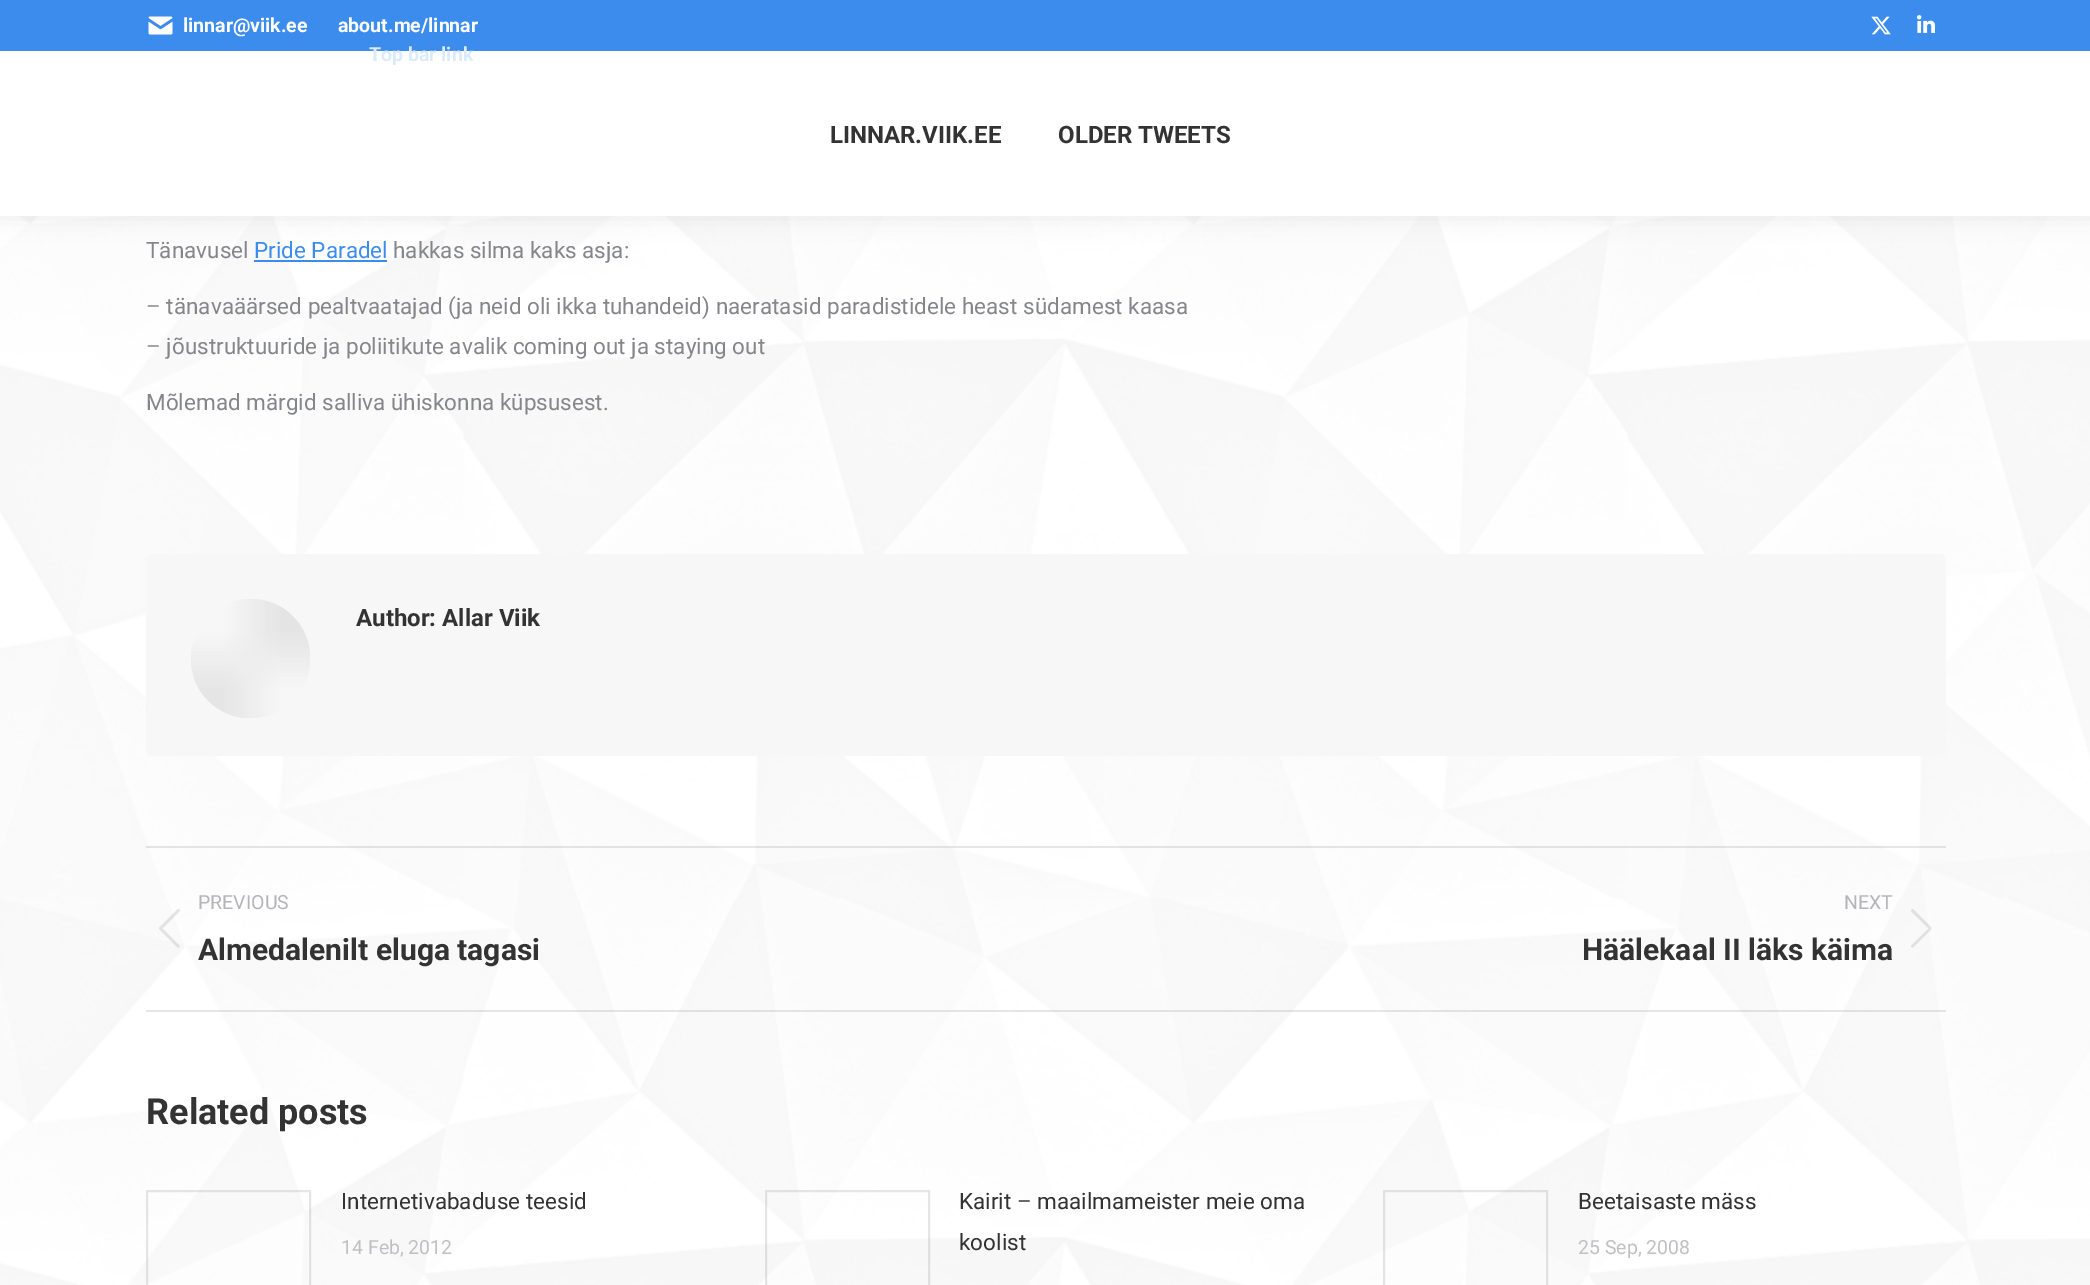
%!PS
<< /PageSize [2090 1285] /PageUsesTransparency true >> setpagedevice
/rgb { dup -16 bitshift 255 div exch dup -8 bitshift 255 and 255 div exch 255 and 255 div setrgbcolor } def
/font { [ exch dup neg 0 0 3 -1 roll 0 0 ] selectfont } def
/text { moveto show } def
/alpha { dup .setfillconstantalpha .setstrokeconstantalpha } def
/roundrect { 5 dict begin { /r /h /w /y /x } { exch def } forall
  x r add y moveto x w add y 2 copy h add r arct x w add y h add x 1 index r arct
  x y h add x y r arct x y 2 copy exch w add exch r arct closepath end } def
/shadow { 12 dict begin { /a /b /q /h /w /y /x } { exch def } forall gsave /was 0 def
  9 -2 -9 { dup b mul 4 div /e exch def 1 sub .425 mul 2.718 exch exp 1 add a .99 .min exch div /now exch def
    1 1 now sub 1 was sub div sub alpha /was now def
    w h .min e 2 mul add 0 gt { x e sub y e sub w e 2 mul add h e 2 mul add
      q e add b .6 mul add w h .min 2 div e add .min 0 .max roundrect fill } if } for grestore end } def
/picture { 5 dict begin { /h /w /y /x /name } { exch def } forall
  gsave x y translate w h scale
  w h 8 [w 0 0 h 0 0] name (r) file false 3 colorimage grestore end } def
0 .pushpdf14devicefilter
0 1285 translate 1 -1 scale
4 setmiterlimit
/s1 { /Roboto-Bold 19.5 font 16#FFFFFF rgb } def
/s2 { /Roboto-Bold 19.5 font 16#DCEAFC rgb } def
/s3 { /Roboto-Bold 24 font 16#333333 rgb } def
/s4 { /Roboto-Regular 22.5 font 16#85868C rgb } def
/s5 { /Roboto-Regular 22.5 font 16#3B8CED rgb } def
/s6 { /Roboto-Regular 19.5 font 16#B4B5BB rgb } def
/s7 { /Roboto-Bold 30 font 16#333333 rgb } def
/s8 { /Roboto-Bold 36 font 16#333333 rgb } def
/s9 { /Roboto-Regular 22.5 font 16#333333 rgb } def
/s10 { /Roboto-Regular 19.5 font 16#BFC0C3 rgb } def
16#FFFFFF rgb
0 0 2090 1285 rectfill
(pic1.raw) 0 216 2090 1069 picture
16#000000 rgb
-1 -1 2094 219 0 11 0.07 shadow
16#FFFFFF rgb
0 51 2090 165 rectfill
16#3B8CED rgb
0 0 2090 51 rectfill
(pic2.raw) 148 16 25 19 picture
s1
(linnar@viik.ee) 183 32 text
(about.me/linnar) 338 32 text
s2
(Top bar link) 369 61 text
(pic3.raw) 1871 16 20 19 picture
(pic4.raw) 1917 15 18 18 picture
s3
(LINNAR.VIIK.EE) 830 143 text
(OLDER TWEETS) 1058 143 text
s4
(Tänavusel) 146 258 text
s5
(Pride Paradel) 254 258 text
254 260 133 2 rectfill
s4
(hakkas silma kaks asja:) 393 258 text
(– tänavaäärsed pealtvaatajad \(ja neid oli ikka tuhandeid\) naeratasid paradistidele heast südamest kaasa) 146 314 text
(– jõustruktuuride ja poliitikute avalik coming out ja staying out) 146 354 text
(Mõlemad märgid salliva ühiskonna küpsusest.) 146 410 text
16#F7F7F7 rgb
146 554 1800 202 6 roundrect fill
(pic5.raw) 191 599 119 119 picture
s3
(Author: Allar Viik) 356 626 text
0.12 alpha
146 846 1800 2 rectfill
146 1010 1800 2 rectfill
1 alpha
s6
(PREVIOUS) 198 909 text
(pic6.raw) 159 909 21 39 picture
s7
(Almedalenilt eluga tagasi) 198 960 text
s6
(NEXT) 1844 909 text
s7
(Häälekaal II läks käima) 1582 960 text
(pic7.raw) 1911 909 21 39 picture
s8
(Related posts) 146 1124 text
0.12 alpha
2 setlinewidth
147 1191 163 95 rectstroke
1 alpha
s9
(Internetivabaduse teesid) 341 1209 text
s10
(14 Feb, 2012) 341 1254 text
0.12 alpha
16#333333 rgb
766 1191 163 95 rectstroke
1 alpha
s9
(Kairit – maailmameister meie oma) 959 1209 text
(koolist) 959 1250 text
0.12 alpha
1384 1191 163 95 rectstroke
1 alpha
(Beetaisaste mäss) 1578 1209 text
s10
(25 Sep, 2008) 1578 1254 text
.poppdf14devicefilter showpage
